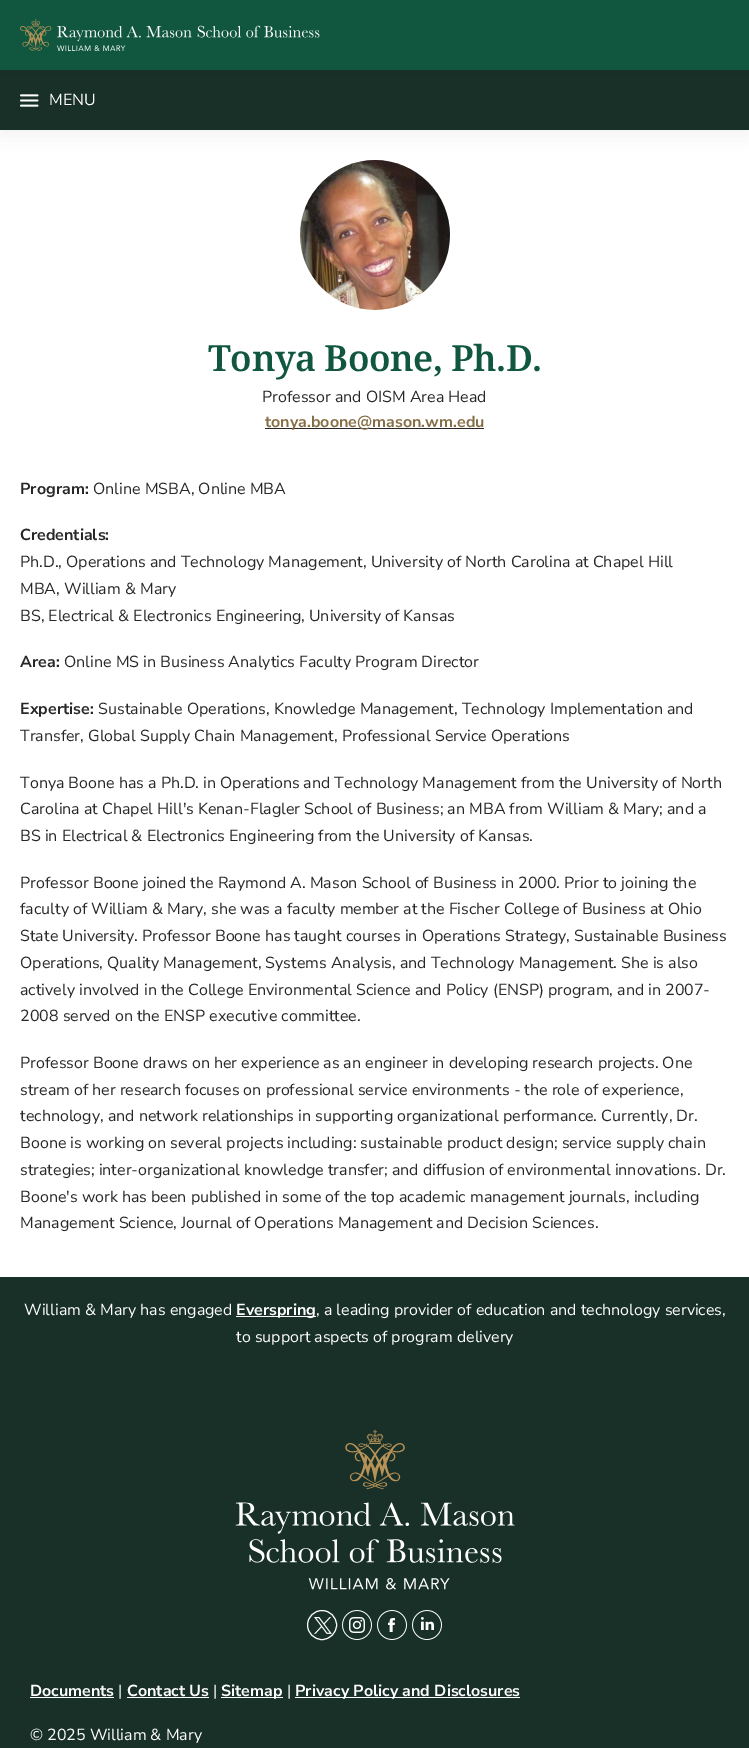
%!PS
<< /PageSize [749 1748] /PageUsesTransparency true >> setpagedevice
/rgb { dup -16 bitshift 255 div exch dup -8 bitshift 255 and 255 div exch 255 and 255 div setrgbcolor } def
/font { [ exch dup neg 0 0 3 -1 roll 0 0 ] selectfont } def
/text { moveto show } def
/alpha { dup .setfillconstantalpha .setstrokeconstantalpha } def
/circle { newpath 0 360 arc closepath } def
/roundrect { 5 dict begin { /r /h /w /y /x } { exch def } forall
  x r add y moveto x w add y 2 copy h add r arct x w add y h add x 1 index r arct
  x y h add x y r arct x y 2 copy exch w add exch r arct closepath end } def
/shadow { 12 dict begin { /a /b /q /h /w /y /x } { exch def } forall gsave /was 0 def
  9 -2 -9 { dup b mul 4 div /e exch def 1 sub .425 mul 2.718 exch exp 1 add a .99 .min exch div /now exch def
    1 1 now sub 1 was sub div sub alpha /was now def
    w h .min e 2 mul add 0 gt { x e sub y e sub w e 2 mul add h e 2 mul add
      q e add b .6 mul add w h .min 2 div e add .min 0 .max roundrect fill } if } for grestore end } def
/picture { 5 dict begin { /h /w /y /x /name } { exch def } forall
  gsave x y translate w h scale
  w h 8 [w 0 0 h 0 0] name (r) file false 3 colorimage grestore end } def
0 .pushpdf14devicefilter
0 1748 translate 1 -1 scale
4 setmiterlimit
/s1 { /NunitoSans-Regular 16 font 16#FFFFFF rgb } def
/s2 { /NunitoSans-Regular 16 font 16#282626 rgb } def
/s3 { /NunitoSans-Bold 16 font 16#866F45 rgb } def
/s4 { /NunitoSans-Bold 16 font 16#282626 rgb } def
/s5 { /NunitoSans-Bold 16 font 16#FFFFFF rgb } def
16#FFFFFF rgb
0 0 749 1748 rectfill
(pic3.raw) 300 160 150 150 picture
16#000000 rgb
0 75 749 60 0 10 0.05 shadow
16#183028 rgb
0 70 749 60 rectfill
(pic2.raw) 20 94 19 13 picture
16#000000 rgb
0 5 749 70 0 10 0.05 shadow
16#115740 rgb
0 0 749 70 rectfill
(pic1.raw) 20 19 300 32 picture
s1
(MENU) 49 105 text
/NotoSerif-SemiBold 36 font
16#115740 rgb
208 371 moveto -0.5 0 (Tonya Boone, Ph.D.) ashow
s2
(Professor and OISM Area Head) 262 402 text
265 428 219 1 rectfill
s3
(tonya.boone@mason.wm.edu) 265 427 text
s4
(Program:) 20 494 text
s2
(Online MSBA, Online MBA) 93 494 text
s4
(Credentials:) 20 540 text
s2
(Ph.D., Operations and Technology Management, University of North Carolina at Chapel Hill) 20 567 text
(MBA, William & Mary) 20 594 text
(BS, Electrical & Electronics Engineering, University of Kansas) 20 621 text
s4
(Area:) 20 667 text
s2
(Online MS in Business Analytics Faculty Program Director) 64 667 text
s4
(Expertise:) 20 714 text
s2
(Sustainable Operations, Knowledge Management, Technology Implementation and) 98 714 text
(Transfer, Global Supply Chain Management, Professional Service Operations) 20 741 text
(Tonya Boone has a Ph.D. in Operations and Technology Management from the University of North) 20 788 text
(Carolina at Chapel Hill's Kenan-Flagler School of Business; an MBA from William & Mary; and a) 20 814 text
(BS in Electrical & Electronics Engineering from the University of Kansas.) 20 841 text
(Professor Boone joined the Raymond A. Mason School of Business in 2000. Prior to joining the) 20 888 text
(faculty of William & Mary, she was a faculty member at the Fischer College of Business at Ohio) 20 914 text
(State University. Professor Boone has taught courses in Operations Strategy, Sustainable Business) 20 941 text
(Operations, Quality Management, Systems Analysis, and Technology Management. She is also) 20 968 text
(actively involved in the College Environmental Science and Policy \(ENSP\) program, and in 2007-) 20 995 text
(2008 served on the ENSP executive committee.) 20 1021 text
(Professor Boone draws on her experience as an engineer in developing research projects. One) 20 1068 text
(stream of her research focuses on professional service environments - the role of experience,) 20 1095 text
(technology, and network relationships in supporting organizational performance. Currently, Dr.) 20 1121 text
(Boone is working on several projects including: sustainable product design; service supply chain) 20 1148 text
(strategies; inter-organizational knowledge transfer; and diffusion of environmental innovations. Dr.) 20 1175 text
(Boone's work has been published in some of the top academic management journals, including) 20 1202 text
(Management Science, Journal of Operations Management and Decision Sciences.) 20 1228 text
16#183028 rgb
0 1277 749 471 rectfill
s1
(William & Mary has engaged) 24 1315 text
236 1316 80 1 rectfill
s5
(Everspring) 236 1315 text
s1
(, a leading provider of education and technology services,) 316 1315 text
(to support aspects of program delivery) 236 1342 text
(pic4.raw) 235 1430 280 160 picture
322 1625 14.5 circle stroke
(pic5.raw) 314 1617 18 17 picture
(pic6.raw) 342 1610 30 30 picture
(pic7.raw) 377 1610 30 30 picture
(pic8.raw) 412 1610 30 30 picture
s5
(Documents) 30 1696 text
30 1697 84 1 rectfill
s1
(|) 118 1696 text
s5
(Contact Us) 127 1696 text
127 1697 82 1 rectfill
s1
(|) 213 1696 text
221 1697 62 1 rectfill
s5
(Sitemap) 221 1696 text
s1
(|) 287 1696 text
295 1697 225 1 rectfill
s5
(Privacy Policy and Disclosures) 295 1696 text
s1
(© 2025 William & Mary) 30 1740 text
.poppdf14devicefilter showpage
